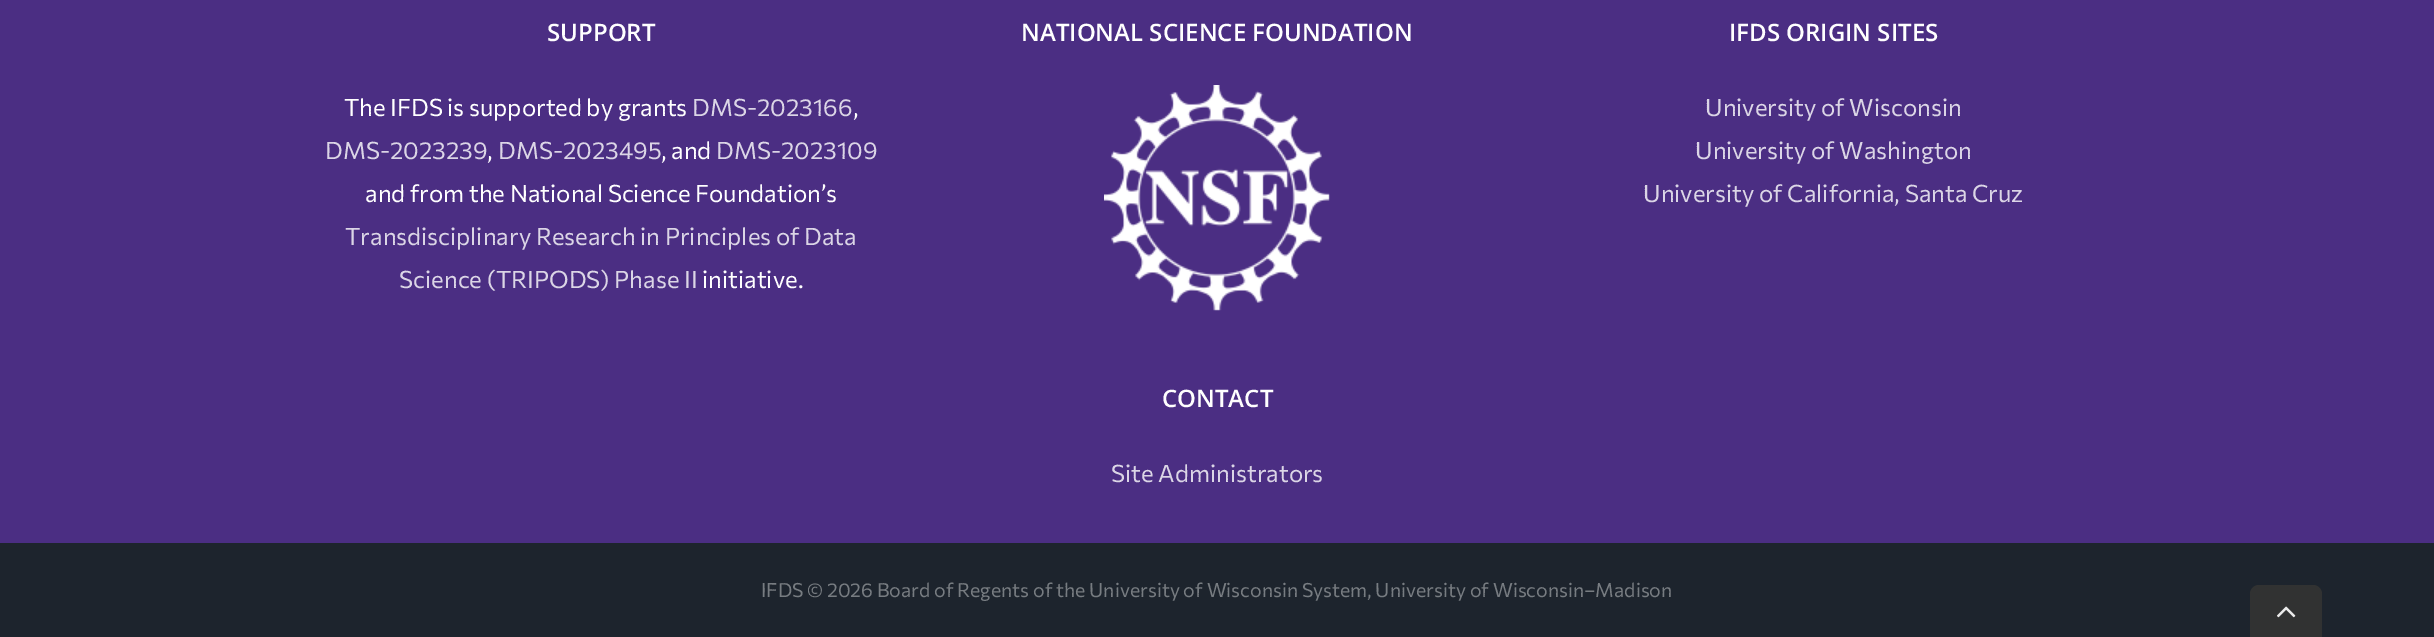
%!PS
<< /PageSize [2434 637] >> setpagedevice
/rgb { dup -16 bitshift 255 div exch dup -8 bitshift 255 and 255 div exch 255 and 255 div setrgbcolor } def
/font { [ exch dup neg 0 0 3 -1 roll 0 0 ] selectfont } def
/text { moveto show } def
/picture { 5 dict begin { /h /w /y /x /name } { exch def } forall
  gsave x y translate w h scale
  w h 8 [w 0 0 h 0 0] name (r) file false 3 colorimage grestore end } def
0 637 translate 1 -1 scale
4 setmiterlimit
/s1 { /OpenSans-SemiBold 24 font 16#FFFFFF rgb } def
/s2 { /Commissioner-Regular 24 font 16#FFFFFF rgb } def
/s3 { /Commissioner-Regular 24 font 16#DBD5E6 rgb } def
/s4 { /Commissioner-Regular 19.5 font 16#777C81 rgb } def
16#4B2E83 rgb
0 0 2434 637 rectfill
s1
(SUPPORT) 547 41 text
s2
(The IFDS is supported by grants) 344 116 text
s3
(DMS-2023166) 692 116 text
s2
(,) 853 116 text
s3
(DMS-2023239) 325 159 text
s2
(,) 487 159 text
s3
(DMS-2023495) 498 159 text
s2
(, and) 661 159 text
s3
(DMS-2023109) 716 159 text
s2
(and from the National Science Foundation’s) 365 202 text
s3
(Transdisciplinary Research in Principles of Data) 345 245 text
(Science \(TRIPODS\) Phase II) 399 288 text
s2
(initiative.) 702 288 text
s1
(NATIONAL SCIENCE FOUNDATION) 1021 41 text
(pic1.raw) 1104 85 226 226 picture
(CONTACT) 1162 407 text
s3
(Site Administrators) 1111 482 text
s1
(IFDS ORIGIN SITES) 1729 41 text
s3
(University of Wisconsin) 1705 116 text
(University of Washington) 1695 159 text
(University of California, Santa Cruz) 1643 202 text
16#1D242D rgb
0 543 2434 94 rectfill
s4
(IFDS © 2026 Board of Regents of the University of Wisconsin System, University of Wisconsin–Madison) 761 597 text
16#313232 rgb
2259 585 moveto 2313 585 lineto 2318 585 2322 589 2322 594 curveto 2322 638 lineto 2250 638 lineto 2250 594 lineto 2250 589 2254 585 2259 585 curveto closepath fill
(pic2.raw) 2277 606 19 12 picture
showpage
